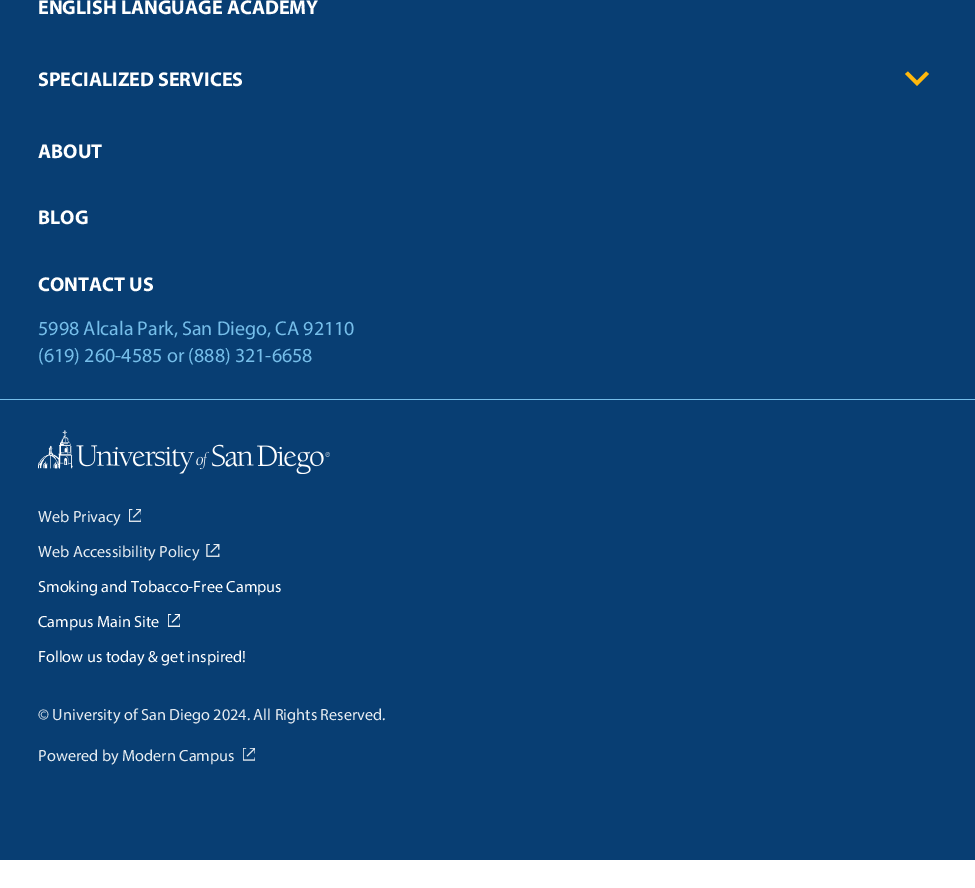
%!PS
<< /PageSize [975 888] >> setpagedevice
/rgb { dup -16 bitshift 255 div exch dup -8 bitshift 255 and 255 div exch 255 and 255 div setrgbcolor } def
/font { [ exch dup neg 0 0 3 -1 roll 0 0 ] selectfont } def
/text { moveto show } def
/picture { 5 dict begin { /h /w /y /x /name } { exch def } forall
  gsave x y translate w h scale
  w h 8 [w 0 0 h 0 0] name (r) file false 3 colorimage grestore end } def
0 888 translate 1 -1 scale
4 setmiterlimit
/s1 { /Myriad-Bold 20 font 16#FFFFFF rgb } def
/s2 { /Myriad-Regular 20 font 16#76BEEA rgb } def
/s3 { /Myriad-Regular 16.25 font 16#E6ECF1 rgb } def
/s4 { /Myriad-Regular 16.25 font 16#FFFFFF rgb } def
16#FFFFFF rgb
0 0 975 888 rectfill
16#083E73 rgb
0 0 975 860 rectfill
s1
(ENGLISH LANGUAGE ACADEMY) 38 14 text
(SPECIALIZED SERVICES) 38 86 text
16#FFB80D rgb
929 74 moveto 926 71.5 lineto 917 80.5 lineto 908 71.5 lineto 905 74 lineto 917 86 lineto closepath fill
s1
(ABOUT) 38 158 text
(BLOG) 38 224 text
(CONTACT US) 38 291 text
s2
(5998 Alcala Park, San Diego, CA 92110) 38 335 text
(\(619\) 260-4585 or \(888\) 321-6658) 38 362 text
0 399 975 1 rectfill
(pic1.raw) 38 430 292 44 picture
s3
(Web Privacy) 38 522 text
(pic2.raw) 129 509 12 13 picture
(Web Accessibility Policy) 38 557 text
(pic3.raw) 206 544 14 13 picture
s4
(Smoking and Tobacco-Free Campus) 38 592 text
(Campus Main Site) 38 627 text
(pic4.raw) 168 614 12 13 picture
(Follow us today & get inspired!) 38 662 text
s3
(© University of San Diego 2024. All Rights Reserved.) 38 720 text
(Powered by Modern Campus) 38 761 text
(pic5.raw) 243 748 12 13 picture
showpage
